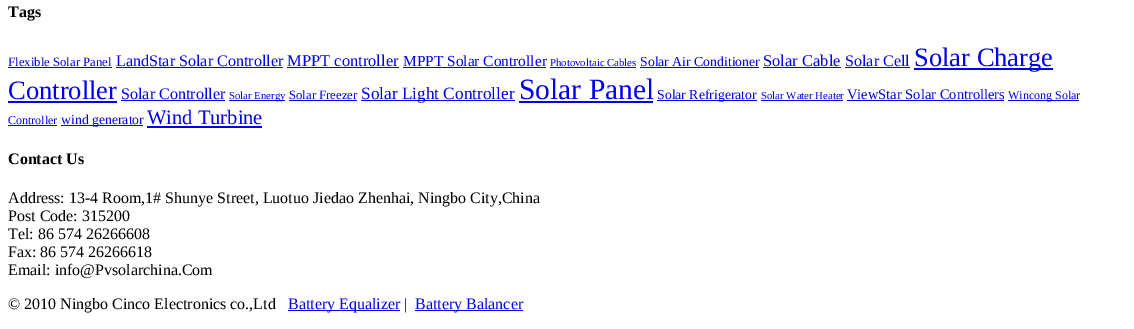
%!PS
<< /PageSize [1134 329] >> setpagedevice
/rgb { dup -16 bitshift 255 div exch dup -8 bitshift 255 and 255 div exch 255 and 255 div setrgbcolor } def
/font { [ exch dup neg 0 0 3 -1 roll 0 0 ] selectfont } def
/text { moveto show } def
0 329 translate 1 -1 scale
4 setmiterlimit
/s1 { /LiberationSerif-Bold 16 font 16#000000 rgb } def
/s2 { /LiberationSerif-Regular 12.75 font 16#0000EE rgb } def
/s3 { /LiberationSerif-Regular 16.1 font 16#0000EE rgb } def
/s4 { /LiberationSerif-Regular 16.5 font 16#0000EE rgb } def
/s5 { /LiberationSerif-Regular 15.4 font 16#0000EE rgb } def
/s6 { /LiberationSerif-Regular 10.75 font 16#0000EE rgb } def
/s7 { /LiberationSerif-Regular 13.75 font 16#0000EE rgb } def
/s8 { /LiberationSerif-Regular 26.5 font 16#0000EE rgb } def
/s9 { /LiberationSerif-Regular 17.25 font 16#0000EE rgb } def
/s10 { /LiberationSerif-Regular 29.5 font 16#0000EE rgb } def
/s11 { /LiberationSerif-Regular 14.5 font 16#0000EE rgb } def
/s12 { /LiberationSerif-Regular 12 font 16#0000EE rgb } def
/s13 { /LiberationSerif-Regular 20.5 font 16#0000EE rgb } def
/s14 { /LiberationSerif-Regular 16 font 16#000000 rgb } def
/s15 { /LiberationSerif-Regular 16 font 16#0000EE rgb } def
16#FFFFFF rgb
0 0 1134 329 rectfill
s1
(Tags) 8 17 text
s2
(Flexible Solar Panel) 8 66 text
8 67 104 1 rectfill
s3
(LandStar Solar Controller) 116 66 text
116 67 167 1 rectfill
s4
(MPPT controller) 287 66 text
287 67 112 1 rectfill
s5
(MPPT Solar Controller) 403 66 text
403 67 143 1 rectfill
s6
(Photovoltaic Cables) 550 66 text
550 67 86 1 rectfill
s7
(Solar Air Conditioner) 640 66 text
640 67 119 1 rectfill
s4
(Solar Cable) 763 66 text
763 67 78 1 rectfill
s3
(Solar Cell) 845 66 text
845 67 65 1 rectfill
914 68 139 2 rectfill
s8
(Solar Charge) 914 66 text
(Controller) 8 99 text
8 101 109 2 rectfill
s3
(Solar Controller) 121 99 text
121 100 104 1 rectfill
229 100 56 1 rectfill
s6
(Solar Energy) 229 99 text
s2
(Solar Freezer) 289 99 text
289 100 68 1 rectfill
361 100 154 1 rectfill
s9
(Solar Light Controller) 361 99 text
s10
(Solar Panel) 519 99 text
519 101 134 2 rectfill
657 100 100 1 rectfill
s7
(Solar Refrigerator) 657 99 text
s6
(Solar Water Heater) 761 99 text
761 100 82 1 rectfill
s11
(ViewStar Solar Controllers) 847 99 text
847 100 157 1 rectfill
1008 100 71 1 rectfill
s12
(Wincong Solar) 1008 99 text
(Controller) 8 124 text
8 125 49 1 rectfill
61 125 82 1 rectfill
s7
(wind generator) 61 124 text
s13
(Wind Turbine) 147 124 text
147 126 115 2 rectfill
s1
(Contact Us) 8 164 text
s14
(Address: 13-4 Room,1# Shunye Street, Luotuo Jiedao Zhenhai, Ningbo City,China) 8 203 text
(Post Code: 315200) 8 221 text
(Tel: 86 574 26266608) 8 239 text
(Fax: 86 574 26266618) 8 257 text
(Email: info@Pvsolarchina.Com) 8 275 text
(© 2010 Ningbo Cinco Electronics co.,Ltd) 8 309 text
16#0000EE rgb
288 310 112 1 rectfill
(Battery Equalizer) 288 309 text
s14
(|) 404 309 text
16#0000EE rgb
415 310 108 1 rectfill
(Battery Balancer) 415 309 text
showpage
